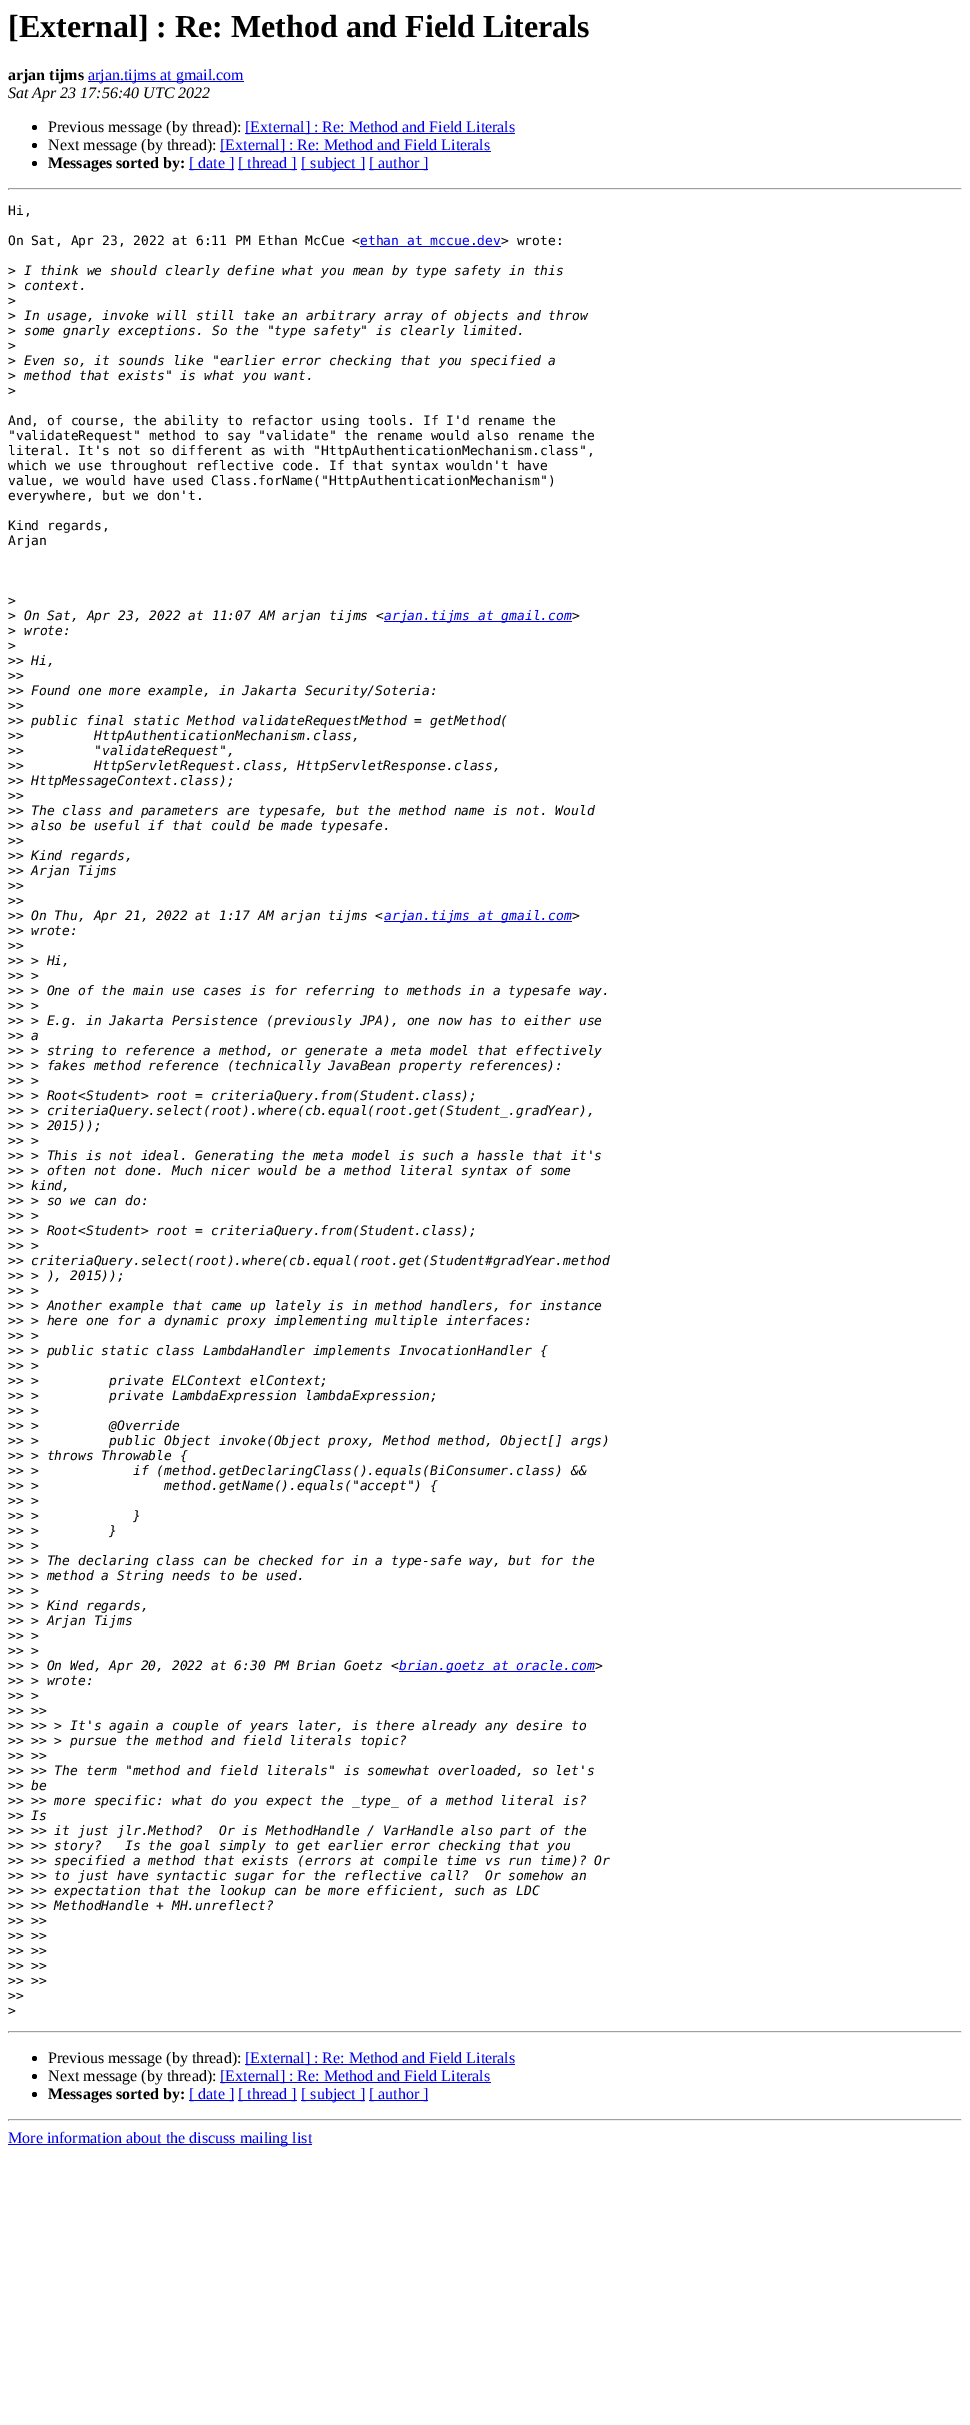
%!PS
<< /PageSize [970 2425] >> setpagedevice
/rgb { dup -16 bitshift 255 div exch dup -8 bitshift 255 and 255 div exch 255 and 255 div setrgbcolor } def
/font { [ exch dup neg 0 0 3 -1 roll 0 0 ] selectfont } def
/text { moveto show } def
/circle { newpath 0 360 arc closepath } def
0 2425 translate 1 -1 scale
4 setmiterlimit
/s1 { /LiberationSerif-Bold 32 font 16#000000 rgb } def
/s2 { /LiberationSerif-Bold 16 font 16#000000 rgb } def
/s3 { /LiberationSerif-Regular 16 font 16#0000EE rgb } def
/s4 { /LiberationSerif-Italic 16 font 16#000000 rgb } def
/s5 { /LiberationSerif-Regular 16 font 16#000000 rgb } def
/s6 { /DejaVuSansMono-Regular 13 font 16#000000 rgb } def
/s7 { /DejaVuSansMono-Regular 13 font 16#0000EE rgb } def
/s8 { /DejaVuSansMono-Italic 13 font 16#000000 rgb } def
/s9 { /DejaVuSansMono-Italic 13 font 16#0000EE rgb } def
16#FFFFFF rgb
0 0 970 2425 rectfill
s1
([External] : Re: Method and Field Literals) 8 37 text
s2
(arjan tijms) 8 80 text
16#0000EE rgb
88 81 156 1 rectfill
s3
(arjan.tijms at gmail.com) 88 80 text
s4
(Sat Apr 23 17:56:40 UTC 2022) 8 98 text
34.5 127.5 2.5 circle fill
s5
(Previous message \(by thread\):) 48 132 text
16#0000EE rgb
245 133 270 1 rectfill
([External] : Re: Method and Field Literals) 245 132 text
16#000000 rgb
34.5 145.5 2.5 circle fill
(Next message \(by thread\):) 48 150 text
16#0000EE rgb
220 151 271 1 rectfill
([External] : Re: Method and Field Literals) 220 150 text
16#000000 rgb
34.5 163.5 2.5 circle fill
s2
(Messages sorted by:) 48 168 text
16#0000EE rgb
189 169 45 1 rectfill
s3
([ date ]) 189 168 text
238 169 59 1 rectfill
([ thread ]) 238 168 text
301 169 64 1 rectfill
([ subject ]) 301 168 text
369 169 59 1 rectfill
([ author ]) 369 168 text
16#9F9F9F rgb
8 188 954 1 rectfill
16#EEEEEE rgb
961 188 1 2 rectfill
8 189 954 1 rectfill
16#9F9F9F rgb
8 188 1 2 rectfill
s6
(Hi,) 8 215 text
(On Sat, Apr 23, 2022 at 6:11 PM Ethan McCue <) 8 245 text
s7
(ethan at mccue.dev) 360 245 text
360 246 141 1 rectfill
s6
(> wrote:) 501 245 text
(>) 8 275 text
s8
(I think we should clearly define what you mean by type safety in this) 24 275 text
s6
(>) 8 290 text
s8
(context.) 24 290 text
s6
(>) 8 305 text
(>) 8 320 text
s8
(In usage, invoke will still take an arbitrary array of objects and throw) 24 320 text
s6
(>) 8 335 text
s8
(some gnarly exceptions. So the "type safety" is clearly limited.) 24 335 text
s6
(>) 8 350 text
(>) 8 365 text
s8
(Even so, it sounds like "earlier error checking that you specified a) 24 365 text
s6
(>) 8 380 text
s8
(method that exists" is what you want.) 24 380 text
s6
(>) 8 395 text
(And, of course, the ability to refactor using tools. If I'd rename the) 8 425 text
("validateRequest" method to say "validate" the rename would also rename the) 8 440 text
(literal. It's not so different as with "HttpAuthenticationMechanism.class",) 8 455 text
(which we use throughout reflective code. If that syntax wouldn't have) 8 470 text
(value, we would have used Class.forName\("HttpAuthenticationMechanism"\)) 8 485 text
(everywhere, but we don't.) 8 500 text
(Kind regards,) 8 530 text
(Arjan) 8 545 text
(>) 8 605 text
(>) 8 620 text
s8
(On Sat, Apr 23, 2022 at 11:07 AM arjan tijms <) 24 620 text
16#0000EE rgb
384 621 188 1 rectfill
(arjan.tijms at gmail.com) 384 620 text
s8
(>) 572 620 text
s6
(>) 8 635 text
s8
(wrote:) 24 635 text
s6
(>) 8 650 text
(>>) 8 665 text
s8
(Hi,) 31 665 text
s6
(>>) 8 680 text
(>>) 8 695 text
s8
(Found one more example, in Jakarta Security/Soteria:) 31 695 text
s6
(>>) 8 710 text
(>>) 8 725 text
s8
(public final static Method validateRequestMethod = getMethod\() 31 725 text
s6
(>>) 8 740 text
s8
(HttpAuthenticationMechanism.class,) 94 740 text
s6
(>>) 8 755 text
s8
("validateRequest",) 94 755 text
s6
(>>) 8 770 text
s8
(HttpServletRequest.class, HttpServletResponse.class,) 94 770 text
s6
(>>) 8 785 text
s8
(HttpMessageContext.class\);) 31 785 text
s6
(>>) 8 800 text
(>>) 8 815 text
s8
(The class and parameters are typesafe, but the method name is not. Would) 31 815 text
s6
(>>) 8 830 text
s8
(also be useful if that could be made typesafe.) 31 830 text
s6
(>>) 8 845 text
(>>) 8 860 text
s8
(Kind regards,) 31 860 text
s6
(>>) 8 875 text
s8
(Arjan Tijms) 31 875 text
s6
(>>) 8 890 text
(>>) 8 905 text
(>>) 8 920 text
s8
(On Thu, Apr 21, 2022 at 1:17 AM arjan tijms <) 31 920 text
16#0000EE rgb
384 921 188 1 rectfill
(arjan.tijms at gmail.com) 384 920 text
s8
(>) 572 920 text
s6
(>>) 8 935 text
s8
(wrote:) 31 935 text
s6
(>>) 8 950 text
(>>) 8 965 text
s8
(> Hi,) 31 965 text
s6
(>>) 8 980 text
s8
(>) 31 980 text
s6
(>>) 8 995 text
s8
(> One of the main use cases is for referring to methods in a typesafe way.) 31 995 text
s6
(>>) 8 1010 text
s8
(>) 31 1010 text
s6
(>>) 8 1025 text
s8
(> E.g. in Jakarta Persistence \(previously JPA\), one now has to either use) 31 1025 text
s6
(>>) 8 1040 text
s8
(a) 31 1040 text
s6
(>>) 8 1055 text
s8
(> string to reference a method, or generate a meta model that effectively) 31 1055 text
s6
(>>) 8 1070 text
s8
(> fakes method reference \(technically JavaBean property references\):) 31 1070 text
s6
(>>) 8 1085 text
s8
(>) 31 1085 text
s6
(>>) 8 1100 text
s8
(> Root<Student> root = criteriaQuery.from\(Student.class\);) 31 1100 text
s6
(>>) 8 1115 text
s8
(> criteriaQuery.select\(root\).where\(cb.equal\(root.get\(Student_.gradYear\),) 31 1115 text
s6
(>>) 8 1130 text
s8
(> 2015\)\);) 31 1130 text
s6
(>>) 8 1145 text
s8
(>) 31 1145 text
s6
(>>) 8 1160 text
s8
(> This is not ideal. Generating the meta model is such a hassle that it's) 31 1160 text
s6
(>>) 8 1175 text
s8
(> often not done. Much nicer would be a method literal syntax of some) 31 1175 text
s6
(>>) 8 1190 text
s8
(kind,) 31 1190 text
s6
(>>) 8 1205 text
s8
(> so we can do:) 31 1205 text
s6
(>>) 8 1220 text
s8
(>) 31 1220 text
s6
(>>) 8 1235 text
s8
(> Root<Student> root = criteriaQuery.from\(Student.class\);) 31 1235 text
s6
(>>) 8 1250 text
s8
(>) 31 1250 text
s6
(>>) 8 1265 text
s8
(criteriaQuery.select\(root\).where\(cb.equal\(root.get\(Student#gradYear.method) 31 1265 text
s6
(>>) 8 1280 text
s8
(> \), 2015\)\);) 31 1280 text
s6
(>>) 8 1295 text
s8
(>) 31 1295 text
s6
(>>) 8 1310 text
s8
(> Another example that came up lately is in method handlers, for instance) 31 1310 text
s6
(>>) 8 1325 text
s8
(> here one for a dynamic proxy implementing multiple interfaces:) 31 1325 text
s6
(>>) 8 1340 text
s8
(>) 31 1340 text
s6
(>>) 8 1355 text
s8
(> public static class LambdaHandler implements InvocationHandler {) 31 1355 text
s6
(>>) 8 1370 text
s8
(>) 31 1370 text
s6
(>>) 8 1385 text
s8
(>         private ELContext elContext;) 31 1385 text
s6
(>>) 8 1400 text
s8
(>         private LambdaExpression lambdaExpression;) 31 1400 text
s6
(>>) 8 1415 text
s8
(>) 31 1415 text
s6
(>>) 8 1430 text
s8
(>         @Override) 31 1430 text
s6
(>>) 8 1445 text
s8
(>         public Object invoke\(Object proxy, Method method, Object[] args\)) 31 1445 text
s6
(>>) 8 1460 text
s8
(> throws Throwable {) 31 1460 text
s6
(>>) 8 1475 text
s8
(>            if \(method.getDeclaringClass\(\).equals\(BiConsumer.class\) &&) 31 1475 text
s6
(>>) 8 1490 text
s8
(>                method.getName\(\).equals\("accept"\) {) 31 1490 text
s6
(>>) 8 1505 text
s8
(>) 31 1505 text
s6
(>>) 8 1520 text
s8
(>            }) 31 1520 text
s6
(>>) 8 1535 text
s8
(>         }) 31 1535 text
s6
(>>) 8 1550 text
s8
(>) 31 1550 text
s6
(>>) 8 1565 text
s8
(> The declaring class can be checked for in a type-safe way, but for the) 31 1565 text
s6
(>>) 8 1580 text
s8
(> method a String needs to be used.) 31 1580 text
s6
(>>) 8 1595 text
s8
(>) 31 1595 text
s6
(>>) 8 1610 text
s8
(> Kind regards,) 31 1610 text
s6
(>>) 8 1625 text
s8
(> Arjan Tijms) 31 1625 text
s6
(>>) 8 1640 text
s8
(>) 31 1640 text
s6
(>>) 8 1655 text
s8
(>) 31 1655 text
s6
(>>) 8 1670 text
s8
(> On Wed, Apr 20, 2022 at 6:30 PM Brian Goetz <) 31 1670 text
16#0000EE rgb
399 1671 196 1 rectfill
(brian.goetz at oracle.com) 399 1670 text
s8
(>) 595 1670 text
s6
(>>) 8 1685 text
s8
(> wrote:) 31 1685 text
s6
(>>) 8 1700 text
s8
(>) 31 1700 text
s6
(>>) 8 1715 text
s8
(>>) 31 1715 text
s6
(>>) 8 1730 text
s8
(>> > It's again a couple of years later, is there already any desire to) 31 1730 text
s6
(>>) 8 1745 text
s8
(>> > pursue the method and field literals topic?) 31 1745 text
s6
(>>) 8 1760 text
s8
(>>) 31 1760 text
s6
(>>) 8 1775 text
s8
(>> The term "method and field literals" is somewhat overloaded, so let's) 31 1775 text
s6
(>>) 8 1790 text
s8
(be) 31 1790 text
s6
(>>) 8 1805 text
s8
(>> more specific: what do you expect the _type_ of a method literal is?) 31 1805 text
s6
(>>) 8 1820 text
s8
(Is) 31 1820 text
s6
(>>) 8 1835 text
s8
(>> it just jlr.Method?  Or is MethodHandle / VarHandle also part of the) 31 1835 text
s6
(>>) 8 1850 text
s8
(>> story?   Is the goal simply to get earlier error checking that you) 31 1850 text
s6
(>>) 8 1865 text
s8
(>> specified a method that exists \(errors at compile time vs run time\)? Or) 31 1865 text
s6
(>>) 8 1880 text
s8
(>> to just have syntactic sugar for the reflective call?  Or somehow an) 31 1880 text
s6
(>>) 8 1895 text
s8
(>> expectation that the lookup can be more efficient, such as LDC) 31 1895 text
s6
(>>) 8 1910 text
s8
(>> MethodHandle + MH.unreflect?) 31 1910 text
s6
(>>) 8 1925 text
s8
(>>) 31 1925 text
s6
(>>) 8 1940 text
s8
(>>) 31 1940 text
s6
(>>) 8 1955 text
s8
(>>) 31 1955 text
s6
(>>) 8 1970 text
s8
(>>) 31 1970 text
s6
(>>) 8 1985 text
s8
(>>) 31 1985 text
s6
(>>) 8 2000 text
(>) 8 2015 text
16#9F9F9F rgb
8 2031 954 1 rectfill
16#EEEEEE rgb
961 2031 1 2 rectfill
8 2032 954 1 rectfill
16#9F9F9F rgb
8 2031 1 2 rectfill
16#000000 rgb
34.5 2058.5 2.5 circle fill
s5
(Previous message \(by thread\):) 48 2063 text
16#0000EE rgb
245 2064 270 1 rectfill
([External] : Re: Method and Field Literals) 245 2063 text
16#000000 rgb
34.5 2076.5 2.5 circle fill
(Next message \(by thread\):) 48 2081 text
16#0000EE rgb
220 2082 271 1 rectfill
([External] : Re: Method and Field Literals) 220 2081 text
16#000000 rgb
34.5 2094.5 2.5 circle fill
s2
(Messages sorted by:) 48 2099 text
16#0000EE rgb
189 2100 45 1 rectfill
s3
([ date ]) 189 2099 text
238 2100 59 1 rectfill
([ thread ]) 238 2099 text
301 2100 64 1 rectfill
([ subject ]) 301 2099 text
369 2100 59 1 rectfill
([ author ]) 369 2099 text
16#9F9F9F rgb
8 2119 954 1 rectfill
16#EEEEEE rgb
961 2119 1 2 rectfill
8 2120 954 1 rectfill
16#9F9F9F rgb
8 2119 1 2 rectfill
16#0000EE rgb
8 2144 304 1 rectfill
(More information about the discuss mailing list) 8 2143 text
showpage
